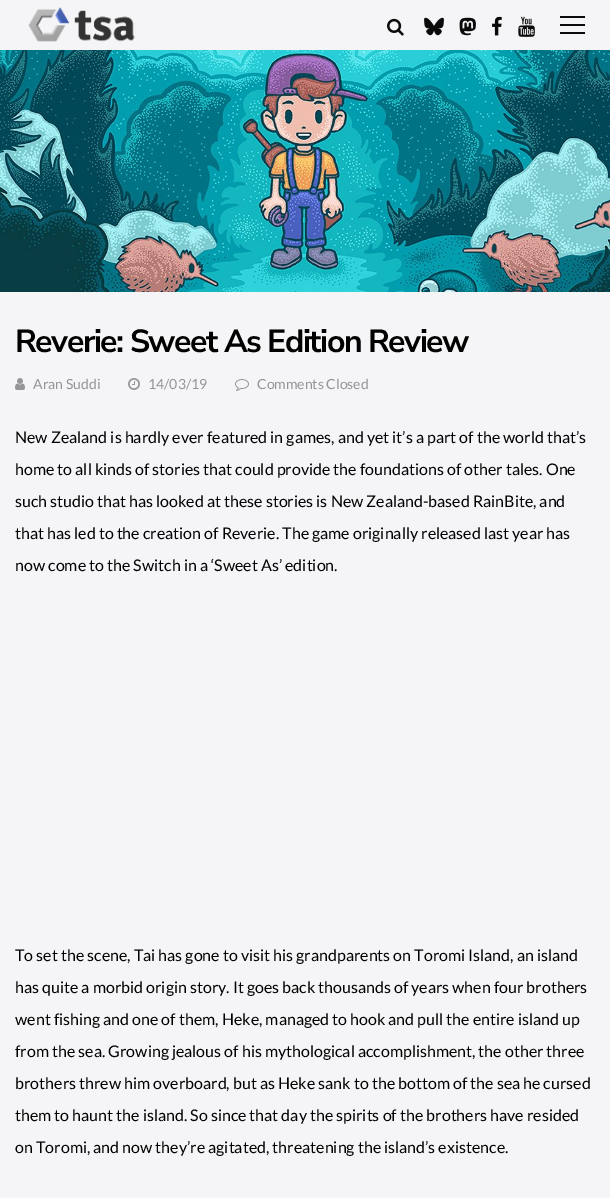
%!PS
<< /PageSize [610 1198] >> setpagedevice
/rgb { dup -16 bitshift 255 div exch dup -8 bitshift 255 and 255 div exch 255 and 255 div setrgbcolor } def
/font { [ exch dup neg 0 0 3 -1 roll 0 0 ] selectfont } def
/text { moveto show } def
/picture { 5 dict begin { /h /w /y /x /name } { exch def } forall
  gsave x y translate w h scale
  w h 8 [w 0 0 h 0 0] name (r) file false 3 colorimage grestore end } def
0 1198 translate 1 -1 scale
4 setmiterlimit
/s1 { /Lato-Regular 14 font 16#959597 rgb } def
/s2 { /Lato-Regular 16 font 16#000000 rgb } def
16#FFFFFF rgb
0 0 610 1198 rectfill
16#F5F5F7 rgb
0 0 610 50 rectfill
(pic1.raw) 28 7 107 35 picture
(pic2.raw) 387 18 17 18 picture
(pic3.raw) 424 17 20 19 picture
(pic4.raw) 459 17 17 19 picture
(pic5.raw) 492 16 10 20 picture
(pic6.raw) 518 16 17 21 picture
16#0A0A0A rgb
560 24 25 2 rectfill
560 16 25 2 rectfill
560 32 25 2 rectfill
(pic7.raw) 0 50 610 242 picture
16#F5F5F7 rgb
0 292 610 906 rectfill
/NunitoSans-Bold 32 font
16#000000 rgb
15 352 moveto -1.5 0 (Reverie: Sweet As Edition Review) ashow
(pic8.raw) 15 378 10 12 picture
s1
(Aran Suddi) 33 389 text
(pic9.raw) 128 378 12 12 picture
(14/03/19) 148 389 text
(pic10.raw) 235 379 14 12 picture
(Comments Closed) 257 389 text
s2
(New Zealand is hardly ever featured in games, and yet it’s a part of the world that’s) 15 443 text
(home to all kinds of stories that could provide the foundations of other tales. One) 15 475 text
(such studio that has looked at these stories is New Zealand-based RainBite, and) 15 507 text
(that has led to the creation of Reverie. The game originally released last year has) 15 539 text
(now come to the Switch in a ‘Sweet As’ edition.) 15 571 text
(To set the scene, Tai has gone to visit his grandparents on Toromi Island, an island) 15 961 text
(has quite a morbid origin story. It goes back thousands of years when four brothers) 15 993 text
(went fishing and one of them, Heke, managed to hook and pull the entire island up) 15 1025 text
(from the sea. Growing jealous of his mythological accomplishment, the other three) 15 1057 text
(brothers threw him overboard, but as Heke sank to the bottom of the sea he cursed) 15 1089 text
(them to haunt the island. So since that day the spirits of the brothers have resided) 15 1121 text
(on Toromi, and now they’re agitated, threatening the island’s existence.) 15 1153 text
showpage
